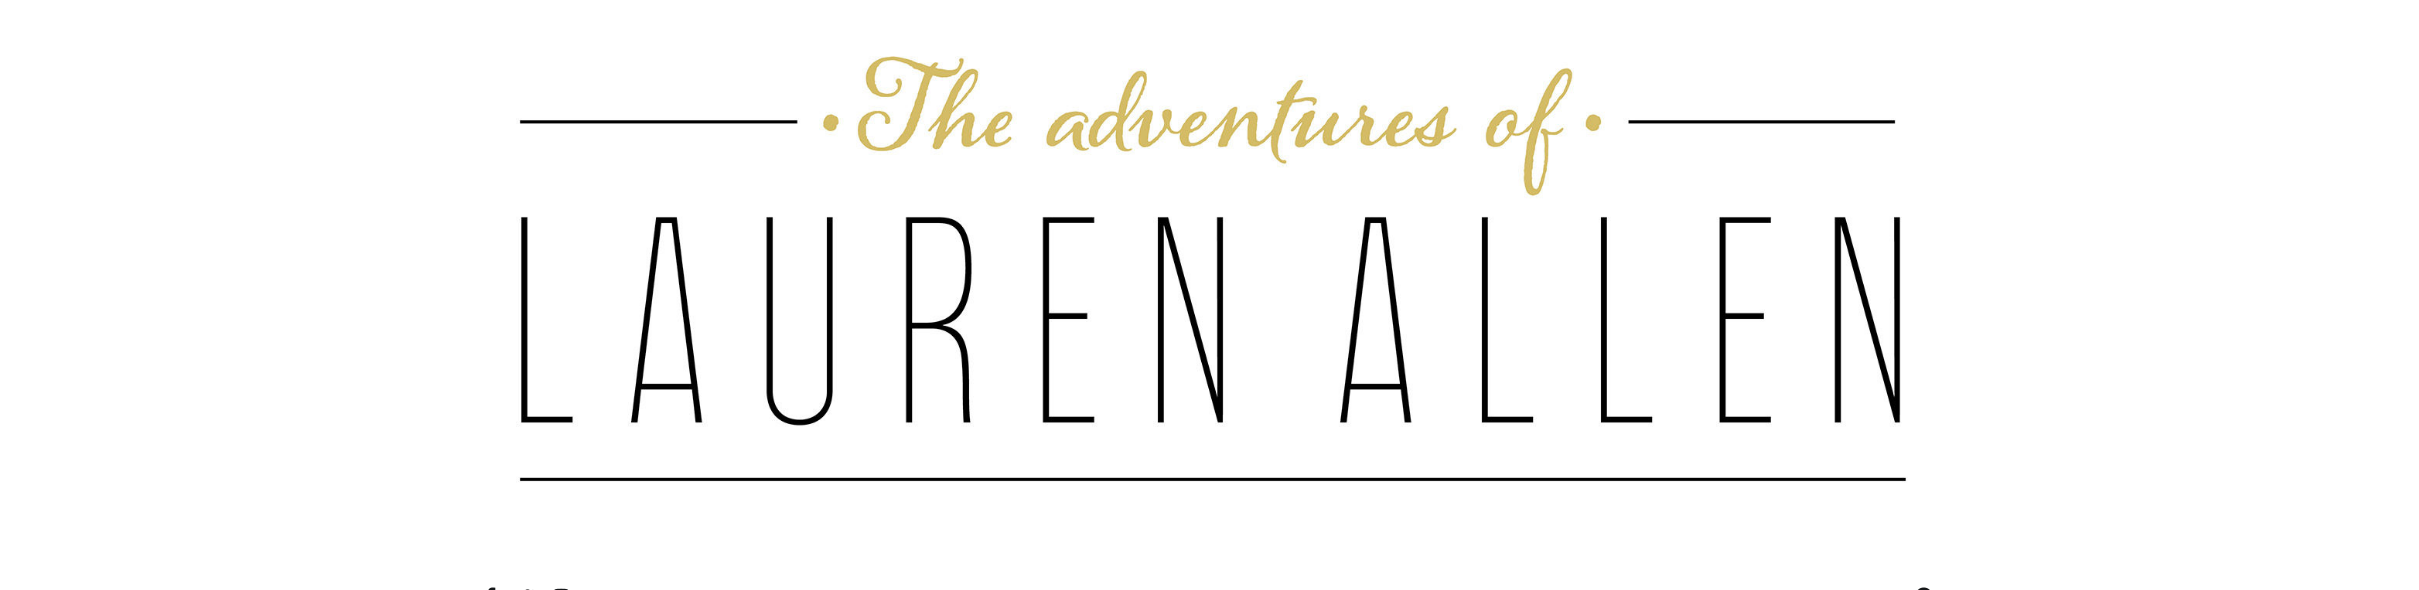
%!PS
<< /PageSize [2419 590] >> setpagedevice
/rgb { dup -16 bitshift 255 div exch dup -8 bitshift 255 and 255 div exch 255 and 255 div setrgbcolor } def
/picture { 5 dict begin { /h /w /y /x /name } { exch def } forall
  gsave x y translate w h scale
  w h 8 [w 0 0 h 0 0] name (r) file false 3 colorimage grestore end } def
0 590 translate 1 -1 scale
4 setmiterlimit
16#FFFFFF rgb
0 0 2419 590 rectfill
(pic1.raw) 516 56 1392 427 picture
(pic2.raw) 488 587 8 3 picture
(pic3.raw) 525 589 9 1 picture
(pic4.raw) 554 588 15 2 picture
(pic5.raw) 1917 587 13 3 picture
showpage
